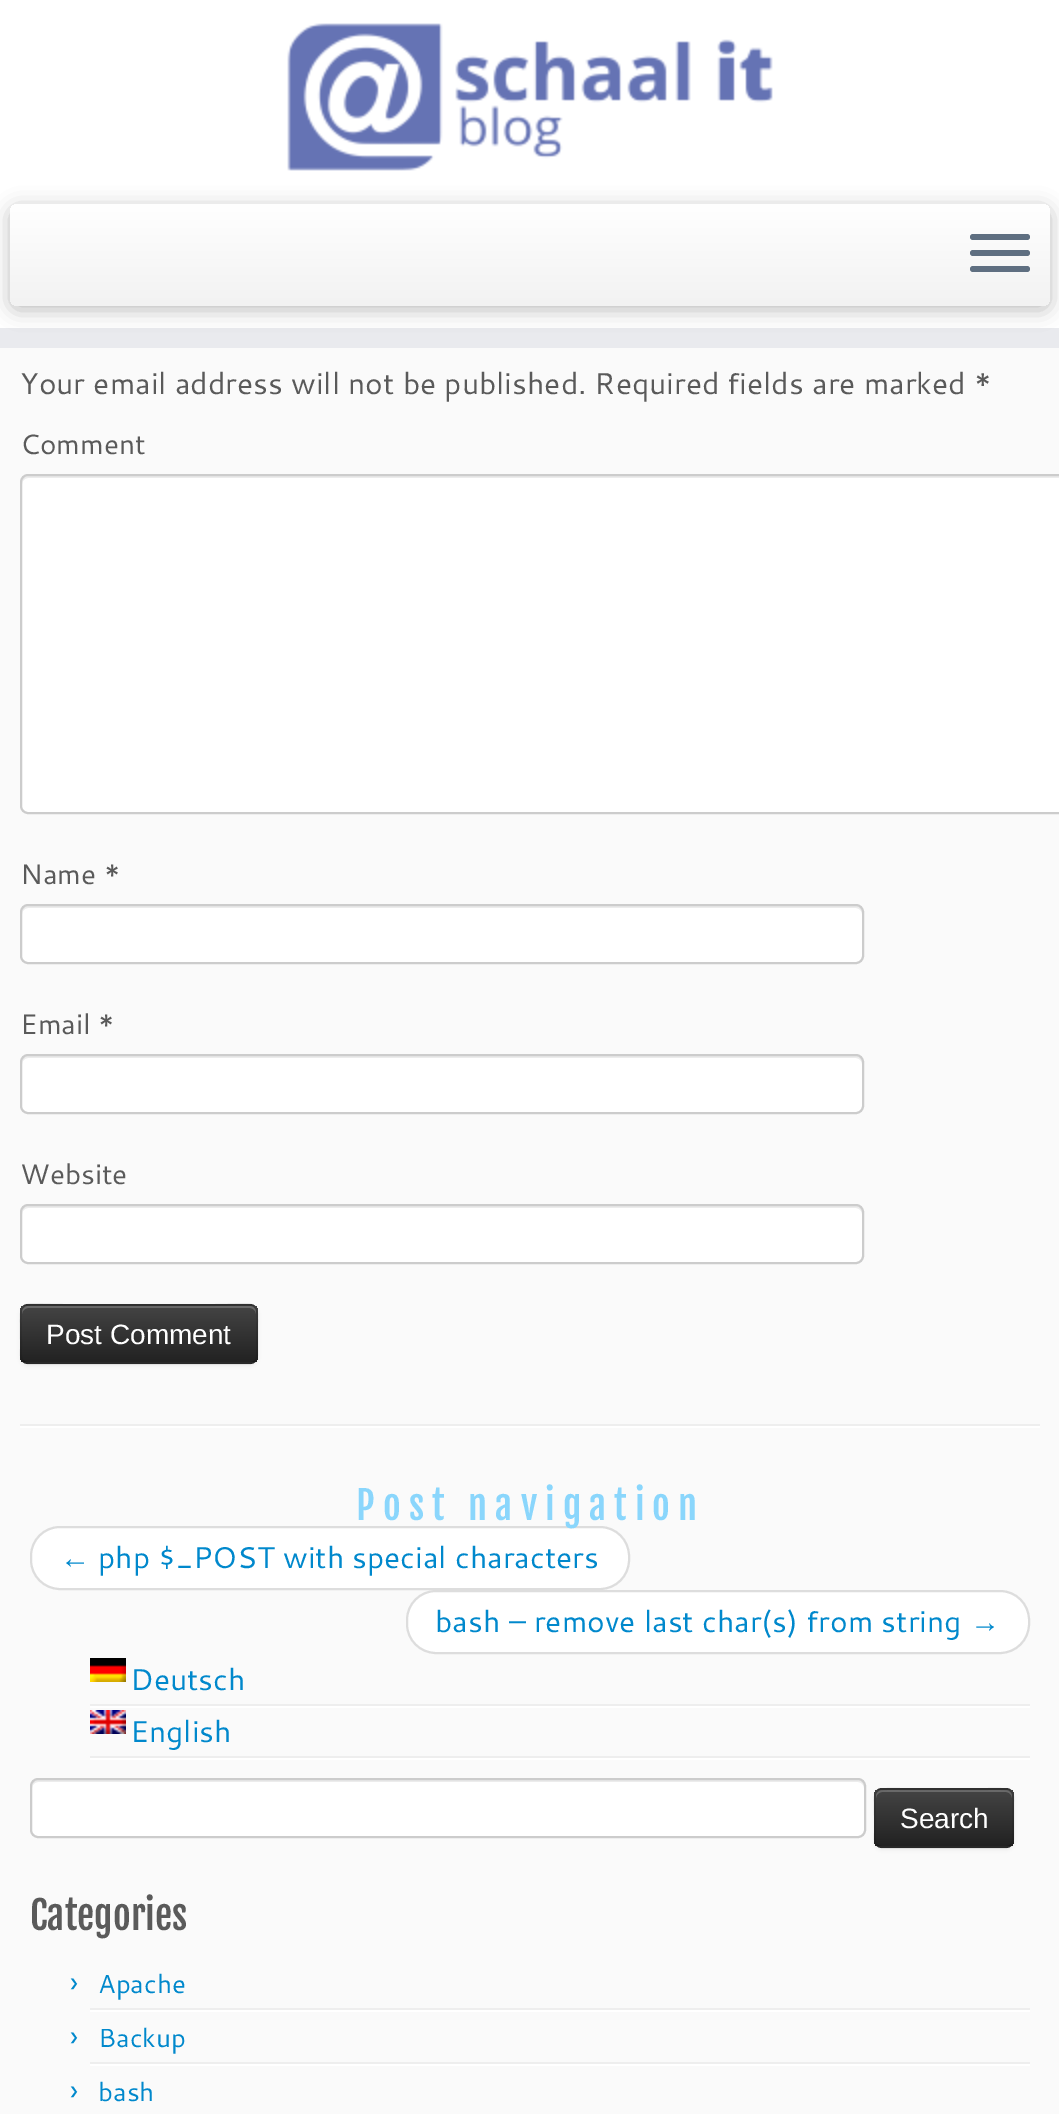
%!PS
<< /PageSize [1059 2114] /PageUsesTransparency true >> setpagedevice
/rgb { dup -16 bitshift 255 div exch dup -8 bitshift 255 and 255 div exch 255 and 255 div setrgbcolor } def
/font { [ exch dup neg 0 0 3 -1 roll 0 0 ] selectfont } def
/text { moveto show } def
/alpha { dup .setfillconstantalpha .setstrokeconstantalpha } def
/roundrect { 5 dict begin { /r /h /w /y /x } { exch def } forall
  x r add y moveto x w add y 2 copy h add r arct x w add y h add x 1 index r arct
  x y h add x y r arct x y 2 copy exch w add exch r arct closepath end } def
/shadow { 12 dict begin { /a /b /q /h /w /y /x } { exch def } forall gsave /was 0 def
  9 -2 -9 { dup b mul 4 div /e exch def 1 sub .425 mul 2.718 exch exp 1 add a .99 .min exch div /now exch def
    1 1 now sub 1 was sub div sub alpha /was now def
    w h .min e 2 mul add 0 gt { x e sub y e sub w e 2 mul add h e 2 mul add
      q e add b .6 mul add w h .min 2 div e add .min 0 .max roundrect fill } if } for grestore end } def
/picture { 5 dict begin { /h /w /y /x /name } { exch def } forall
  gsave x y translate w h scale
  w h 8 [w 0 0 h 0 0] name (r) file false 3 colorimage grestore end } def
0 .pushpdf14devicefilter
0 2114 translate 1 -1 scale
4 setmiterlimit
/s1 { /Cantarell-Regular 30 font 16#5A5A5A rgb } def
/s2 { /Cantarell-Regular 28 font 16#5A5A5A rgb } def
/s3 { /LiberationSans-Regular 28 font 16#FFFFFF rgb } def
/s4 { /LiberationSerif-Regular 30 font 16#0088CC rgb } def
/s5 { /Cantarell-Regular 30 font 16#0088CC rgb } def
/s6 { /FjallaOne-Regular 38.5 font 16#5A5A5A rgb } def
/s7 { /Cantarell-Regular 26 font 16#0088CC rgb } def
16#FAFAFA rgb
0 0 1059 2114 rectfill
16#FFFFFF rgb
0 0 1059 328 rectfill
16#E9EAEE rgb
0 328 1059 20 rectfill
(pic1.raw) 287 23 486 148 picture
16#000000 rgb
10 208 1040 102 8 10 0.25 shadow
gsave 10 204 1040 102 8 roundrect clip newpath
<< /ShadingType 2 /ColorSpace /DeviceRGB /Coords [530 204 530 306] /Extend [true true] /Function << /FunctionType 2 /Domain [0 1] /C0 [1 1 1] /C1 [0.949 0.949 0.949] /N 1 >> >> shfill grestore
16#5F6F81 rgb
970 234 60 6 3 roundrect fill
970 250 60 6 3 roundrect fill
970 266 60 6 3 roundrect fill
s1
(Your email address will not be published. Required fields are marked *) 20 394 text
s2
(Comment) 20 454 text
16#FFFFFF rgb
20 474 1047 340 8 roundrect fill
16#ECECEC rgb
28 478 moveto 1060 478 lineto 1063 478 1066 481 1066 484 curveto 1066 482 lineto 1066 479 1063 476 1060 476 curveto 28 476 lineto 25 476 22 479 22 482 curveto 22 484 lineto 22 481 25 478 28 478 curveto closepath fill
16#CCCCCC rgb
2 setlinewidth
21 475 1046 338 7 roundrect stroke
s2
(Name *) 20 884 text
16#FFFFFF rgb
20 904 844 60 8 roundrect fill
16#ECECEC rgb
28 908 moveto 856 908 lineto 859 908 862 911 862 914 curveto 862 910 861 906 856 906 curveto 28 906 lineto 23 906 22 910 22 914 curveto 22 911 25 908 28 908 curveto closepath fill
16#CCCCCC rgb
21 905 842 58 7 roundrect stroke
s2
(Email *) 20 1034 text
16#FFFFFF rgb
20 1054 844 60 8 roundrect fill
16#ECECEC rgb
28 1058 moveto 856 1058 lineto 859 1058 862 1061 862 1064 curveto 862 1060 861 1056 856 1056 curveto 28 1056 lineto 23 1056 22 1060 22 1064 curveto 22 1061 25 1058 28 1058 curveto closepath fill
16#CCCCCC rgb
21 1055 842 58 7 roundrect stroke
s2
(Website) 20 1184 text
16#FFFFFF rgb
20 1204 844 60 8 roundrect fill
16#ECECEC rgb
28 1208 moveto 856 1208 lineto 859 1208 862 1211 862 1214 curveto 862 1210 861 1206 856 1206 curveto 28 1206 lineto 23 1206 22 1210 22 1214 curveto 22 1211 25 1208 28 1208 curveto closepath fill
16#CCCCCC rgb
21 1205 842 58 7 roundrect stroke
16#000000 rgb
20 1306 238 60 8 2 0.05 shadow
16#363636 rgb
20 1304 238 60 8 roundrect fill
gsave
20 1304 238 60 8 roundrect clip newpath
gsave 20 1306 moveto 258 1306 lineto 258 1362 lineto 20 1362 lineto closepath clip newpath
<< /ShadingType 2 /ColorSpace /DeviceRGB /Coords [139 1306 139 1362] /Extend [true true] /Function << /FunctionType 2 /Domain [0 1] /C0 [0.267 0.267 0.267] /C1 [0.133 0.133 0.133] /N 1 >> >> shfill grestore
grestore
0.2 alpha
16#FFFFFF rgb
28 1308 moveto 250 1308 lineto 253 1308 256 1311 256 1314 curveto 256 1312 lineto 256 1309 253 1306 250 1306 curveto 28 1306 lineto 25 1306 22 1309 22 1312 curveto 22 1314 lineto 22 1311 25 1308 28 1308 curveto closepath fill
0.25 alpha
16#000000 rgb
255 1361 moveto 253.5 1362.5 252 1363 250 1363 curveto 28 1363 lineto 26 1363 24.5 1362.5 23 1361 curveto stroke
0.1 alpha
23 1361 moveto 20 1358 21 1352.5 21 1348.5 curveto 21 1341.5 lineto 21 1296 14.5 1305 65 1305 curveto 213 1305 lineto 263.5 1305 257 1296 257 1341.5 curveto 257 1348.5 lineto 257 1352.5 258 1358 255 1361 curveto stroke
1 alpha
s3
(Post Comment) 46 1344 text
16#EEEEEE rgb
20 1424 1020 2 rectfill
16#FFFFFF rgb
20 1426 1020 2 rectfill
31 1527 598 62 29 roundrect gsave fill grestore
16#DDDDDD rgb
stroke
/FjallaOne-Regular 38.5 font
16#8AD6FC rgb
356 1520 moveto 8 0 (Post navigation) ashow
s4
(←) 60 1568 text
s5
(php $_POST with special characters) 98 1568 text
16#FFFFFF rgb
407 1591 622 62 29 roundrect gsave fill grestore
16#DDDDDD rgb
stroke
s5
(bash – remove last char\(s\) from string) 435 1632 text
s4
(→) 970 1632 text
16#EEEEEE rgb
90 1704 940 2 rectfill
(pic2.raw) 90 1658 36 24 picture
s5
(Deutsch) 130 1690 text
16#FFFFFF rgb
90 1706 940 2 rectfill
16#EEEEEE rgb
90 1756 940 2 rectfill
(pic3.raw) 90 1710 36 24 picture
s5
(English) 130 1742 text
16#FFFFFF rgb
90 1758 940 2 rectfill
30 1778 836 60 8 roundrect fill
16#ECECEC rgb
38 1782 moveto 858 1782 lineto 861 1782 864 1785 864 1788 curveto 864 1784 863 1780 858 1780 curveto 38 1780 lineto 33 1780 32 1784 32 1788 curveto 32 1785 35 1782 38 1782 curveto closepath fill
16#CCCCCC rgb
31 1779 834 58 7 roundrect stroke
16#000000 rgb
874 1790 140 60 8 2 0.05 shadow
16#363636 rgb
874 1788 140 60 8 roundrect fill
gsave
874 1788 140 60 8 roundrect clip newpath
gsave 874 1790 moveto 1014 1790 lineto 1014 1846 lineto 874 1846 lineto closepath clip newpath
<< /ShadingType 2 /ColorSpace /DeviceRGB /Coords [944 1790 944 1846] /Extend [true true] /Function << /FunctionType 2 /Domain [0 1] /C0 [0.267 0.267 0.267] /C1 [0.133 0.133 0.133] /N 1 >> >> shfill grestore
grestore
0.2 alpha
16#FFFFFF rgb
882 1792 moveto 1006 1792 lineto 1009 1792 1012 1795 1012 1798 curveto 1012 1796 lineto 1012 1793 1009 1790 1006 1790 curveto 882 1790 lineto 879 1790 876 1793 876 1796 curveto 876 1798 lineto 876 1795 879 1792 882 1792 curveto closepath fill
0.25 alpha
16#000000 rgb
1011 1845 moveto 1009.5 1846.5 1008 1847 1006 1847 curveto 882 1847 lineto 880 1847 878.5 1846.5 877 1845 curveto stroke
0.1 alpha
877 1845 moveto 874 1842 875 1836.5 875 1832.5 curveto 875 1818 lineto 875 1786 870 1789 902.5 1789 curveto 985.5 1789 lineto 1018 1789 1013 1786 1013 1818 curveto 1013 1832.5 lineto 1013 1836.5 1014 1842 1011 1845 curveto stroke
1 alpha
s3
(Search) 900 1828 text
s6
(Categories) 30 1930 text
16#EEEEEE rgb
90 2008 940 2 rectfill
s5
(›) 70 1993 text
s7
(Apache) 98 1993 text
16#FFFFFF rgb
90 2010 940 2 rectfill
16#EEEEEE rgb
90 2062 940 2 rectfill
s5
(›) 70 2047 text
s7
(Backup) 98 2047 text
16#FFFFFF rgb
90 2064 940 2 rectfill
s5
(›) 70 2101 text
s7
(bash) 98 2101 text
.poppdf14devicefilter showpage
